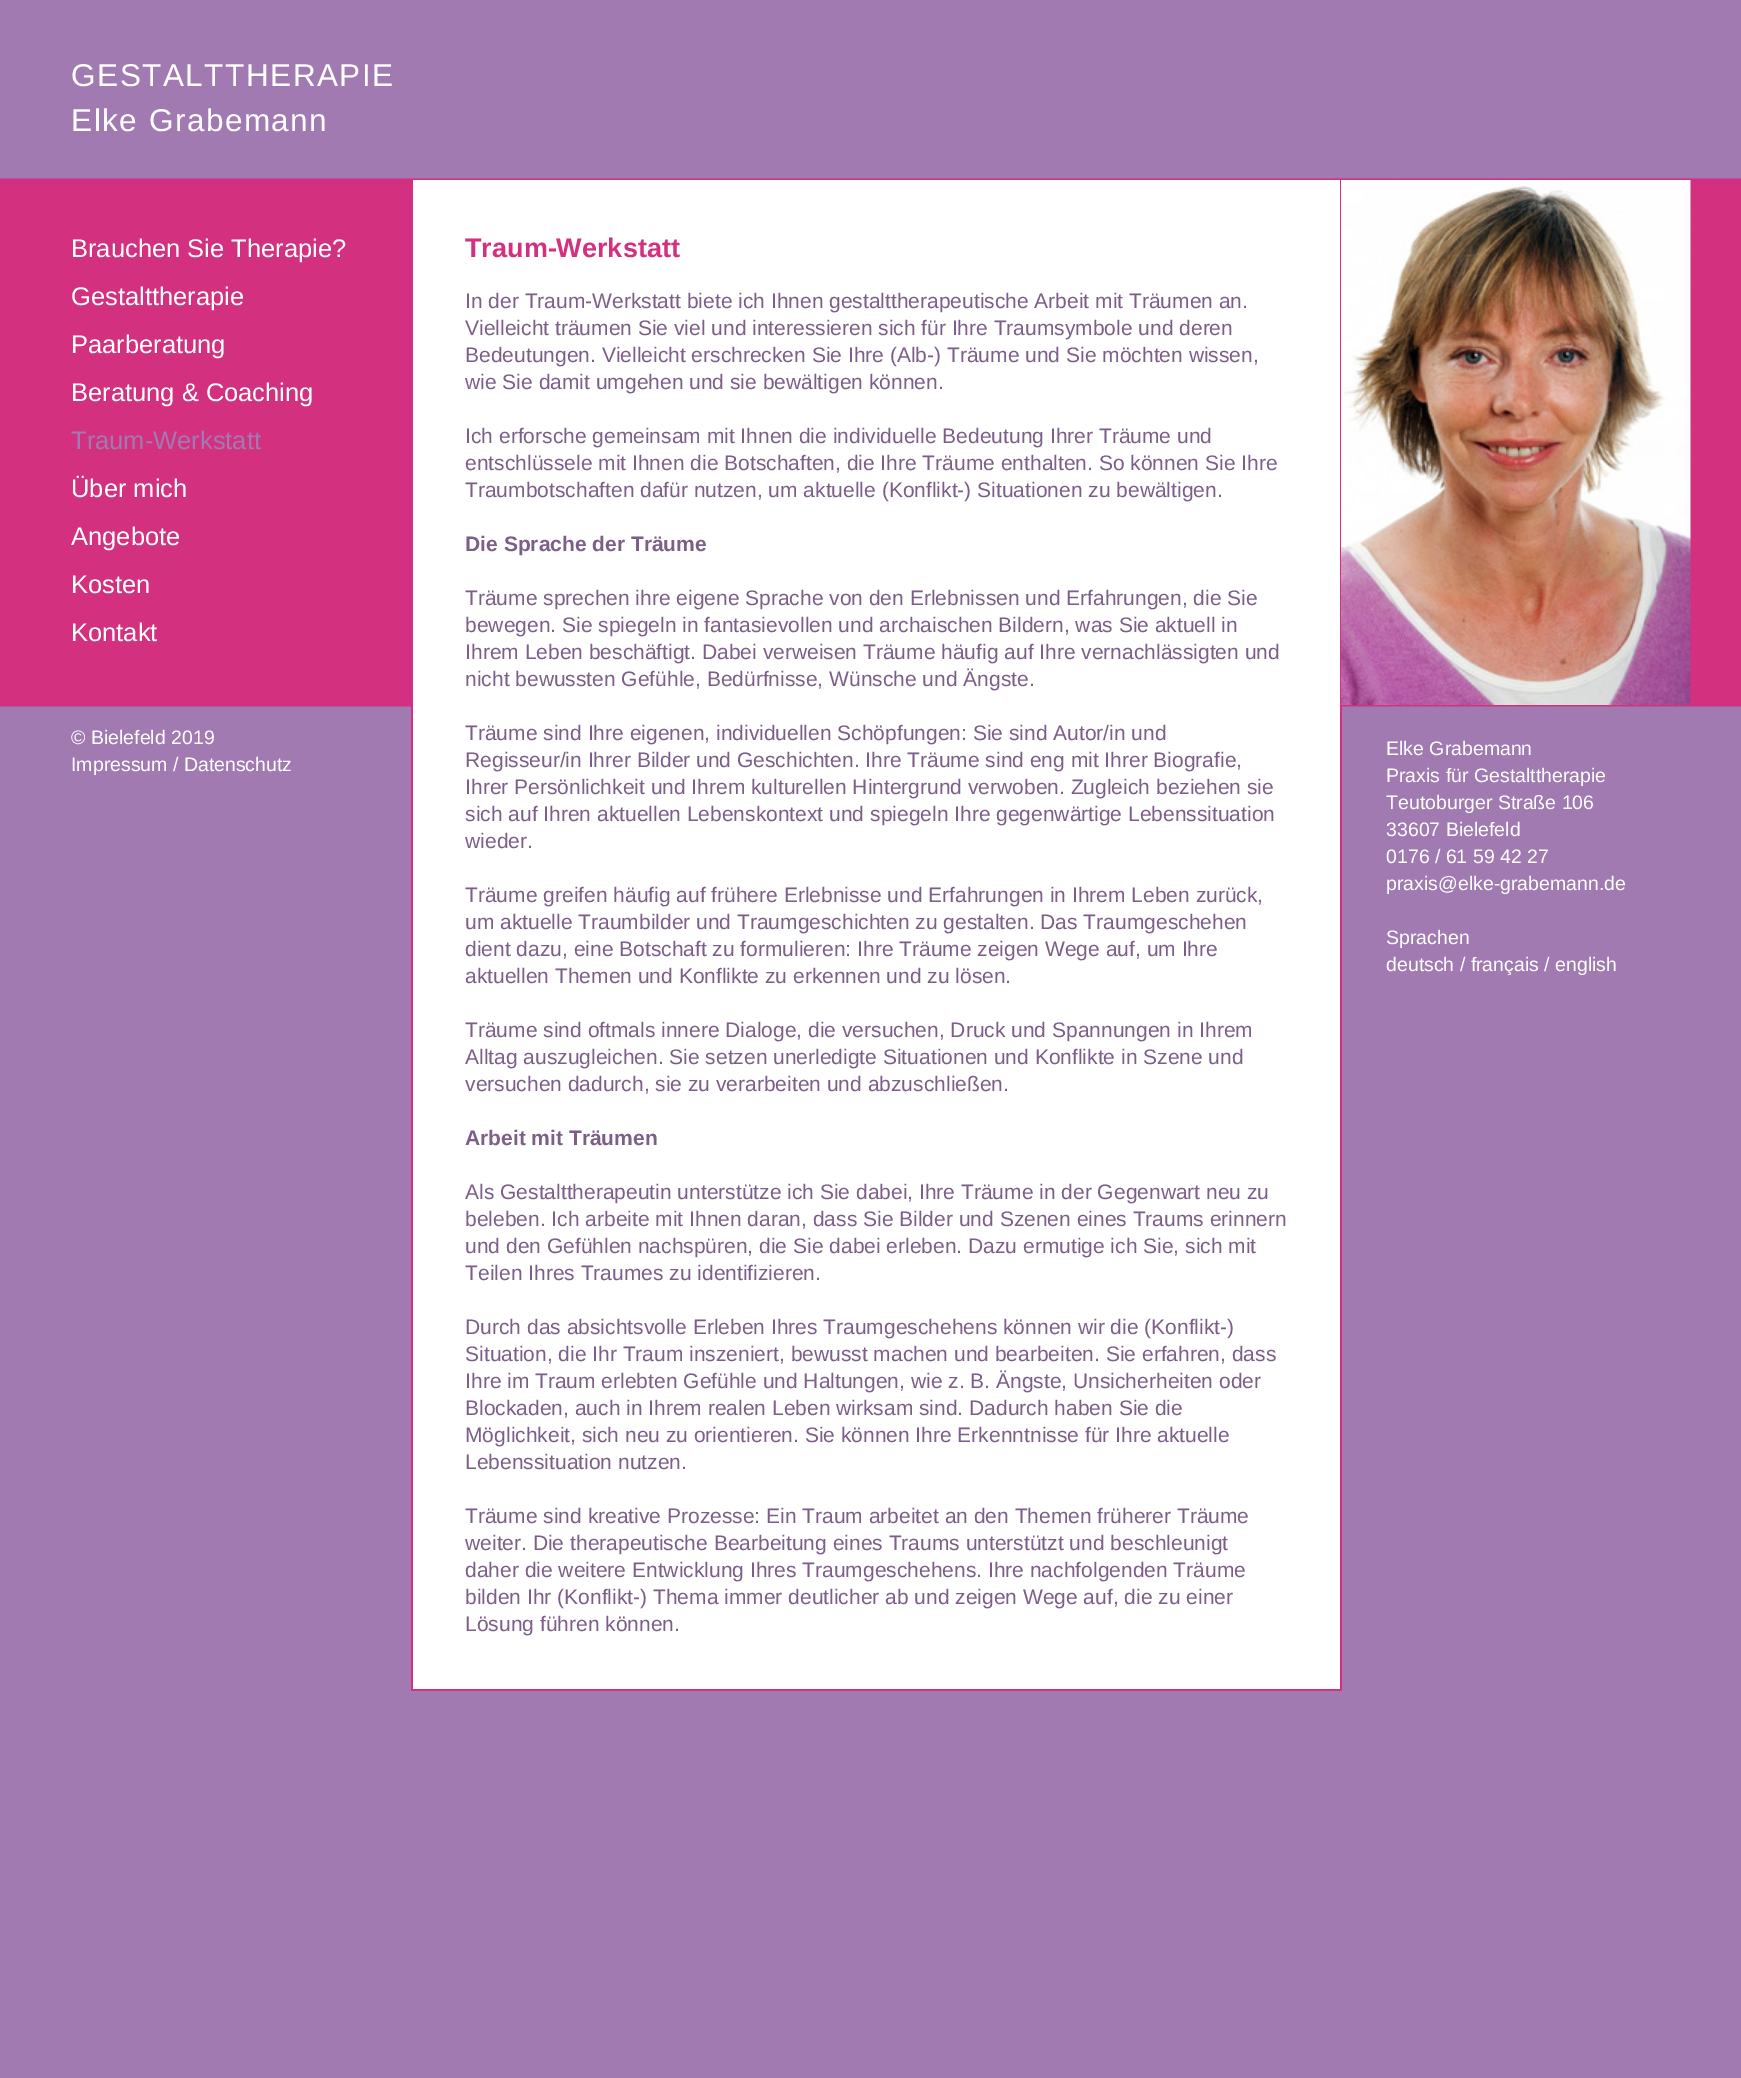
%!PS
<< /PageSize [1741 2078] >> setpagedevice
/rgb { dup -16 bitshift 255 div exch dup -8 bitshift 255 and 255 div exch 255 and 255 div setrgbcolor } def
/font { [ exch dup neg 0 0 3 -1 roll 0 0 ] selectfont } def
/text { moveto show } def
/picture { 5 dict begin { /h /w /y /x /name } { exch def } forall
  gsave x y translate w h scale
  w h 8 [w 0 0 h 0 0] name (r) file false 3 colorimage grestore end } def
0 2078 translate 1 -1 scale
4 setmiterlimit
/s1 { /LiberationSans-Regular 25.5 font 16#FFFFFF rgb } def
/s2 { /LiberationSans-Regular 25.5 font 16#A07AB0 rgb } def
/s3 { /LiberationSans-Regular 19.5 font 16#FFFFFF rgb } def
/s4 { /LiberationSans-Bold 27 font 16#D3307F rgb } def
/s5 { /LiberationSans-Regular 21 font 16#7C5E88 rgb } def
/s6 { /LiberationSans-Bold 21 font 16#7C5E88 rgb } def
16#A07AB0 rgb
0 0 1741 2078 rectfill
(pic1.raw) 0 173 1741 534 picture
/LiberationSans-Regular 31.5 font
16#FFFFFF rgb
71 86 moveto 1.5 0 (GESTALTTHERAPIE) ashow
71 131 moveto 1.5 0 (Elke Grabemann) ashow
s1
(Brauchen Sie Therapie?) 71 257 text
(Gestalttherapie) 71 305 text
(Paarberatung) 71 353 text
(Beratung & Coaching) 71 401 text
s2
(Traum-Werkstatt) 71 449 text
s1
(Über mich) 71 497 text
(Angebote) 71 545 text
(Kosten) 71 593 text
(Kontakt) 71 641 text
s3
(© Bielefeld 2019) 71 744 text
(Impressum / Datenschutz) 71 771 text
413 180 927 1509 rectfill
16#D3307F rgb
1340 180 2 1511 rectfill
411 1689 930 2 rectfill
411 180 2 1511 rectfill
s4
(Traum-Werkstatt) 465 257 text
s5
(In der Traum-Werkstatt biete ich Ihnen gestalttherapeutische Arbeit mit Träumen an.) 465 308 text
(Vielleicht träumen Sie viel und interessieren sich für Ihre Traumsymbole und deren) 465 335 text
(Bedeutungen. Vielleicht erschrecken Sie Ihre \(Alb-\) Träume und Sie möchten wissen,) 465 362 text
(wie Sie damit umgehen und sie bewältigen können.) 465 389 text
(Ich erforsche gemeinsam mit Ihnen die individuelle Bedeutung Ihrer Träume und) 465 443 text
(entschlüssele mit Ihnen die Botschaften, die Ihre Träume enthalten. So können Sie Ihre) 465 470 text
(Traumbotschaften dafür nutzen, um aktuelle \(Konflikt-\) Situationen zu bewältigen.) 465 497 text
s6
(Die Sprache der Träume) 465 551 text
s5
(Träume sprechen ihre eigene Sprache von den Erlebnissen und Erfahrungen, die Sie) 465 605 text
(bewegen. Sie spiegeln in fantasievollen und archaischen Bildern, was Sie aktuell in) 465 632 text
(Ihrem Leben beschäftigt. Dabei verweisen Träume häufig auf Ihre vernachlässigten und) 465 659 text
(nicht bewussten Gefühle, Bedürfnisse, Wünsche und Ängste.) 465 686 text
(Träume sind Ihre eigenen, individuellen Schöpfungen: Sie sind Autor/in und) 465 740 text
(Regisseur/in Ihrer Bilder und Geschichten. Ihre Träume sind eng mit Ihrer Biografie,) 465 767 text
(Ihrer Persönlichkeit und Ihrem kulturellen Hintergrund verwoben. Zugleich beziehen sie) 465 794 text
(sich auf Ihren aktuellen Lebenskontext und spiegeln Ihre gegenwärtige Lebenssituation) 465 821 text
(wieder.) 465 848 text
(Träume greifen häufig auf frühere Erlebnisse und Erfahrungen in Ihrem Leben zurück,) 465 902 text
(um aktuelle Traumbilder und Traumgeschichten zu gestalten. Das Traumgeschehen) 465 929 text
(dient dazu, eine Botschaft zu formulieren: Ihre Träume zeigen Wege auf, um Ihre) 465 956 text
(aktuellen Themen und Konflikte zu erkennen und zu lösen.) 465 983 text
(Träume sind oftmals innere Dialoge, die versuchen, Druck und Spannungen in Ihrem) 465 1037 text
(Alltag auszugleichen. Sie setzen unerledigte Situationen und Konflikte in Szene und) 465 1064 text
(versuchen dadurch, sie zu verarbeiten und abzuschließen.) 465 1091 text
s6
(Arbeit mit Träumen) 465 1145 text
s5
(Als Gestalttherapeutin unterstütze ich Sie dabei, Ihre Träume in der Gegenwart neu zu) 465 1199 text
(beleben. Ich arbeite mit Ihnen daran, dass Sie Bilder und Szenen eines Traums erinnern) 465 1226 text
(und den Gefühlen nachspüren, die Sie dabei erleben. Dazu ermutige ich Sie, sich mit) 465 1253 text
(Teilen Ihres Traumes zu identifizieren.) 465 1280 text
(Durch das absichtsvolle Erleben Ihres Traumgeschehens können wir die \(Konflikt-\)) 465 1334 text
(Situation, die Ihr Traum inszeniert, bewusst machen und bearbeiten. Sie erfahren, dass) 465 1361 text
(Ihre im Traum erlebten Gefühle und Haltungen, wie z. B. Ängste, Unsicherheiten oder) 465 1388 text
(Blockaden, auch in Ihrem realen Leben wirksam sind. Dadurch haben Sie die) 465 1415 text
(Möglichkeit, sich neu zu orientieren. Sie können Ihre Erkenntnisse für Ihre aktuelle) 465 1442 text
(Lebenssituation nutzen.) 465 1469 text
(Träume sind kreative Prozesse: Ein Traum arbeitet an den Themen früherer Träume) 465 1523 text
(weiter. Die therapeutische Bearbeitung eines Traums unterstützt und beschleunigt) 465 1550 text
(daher die weitere Entwicklung Ihres Traumgeschehens. Ihre nachfolgenden Träume) 465 1577 text
(bilden Ihr \(Konflikt-\) Thema immer deutlicher ab und zeigen Wege auf, die zu einer) 465 1604 text
(Lösung führen können.) 465 1631 text
(pic2.raw) 1341 180 350 525 picture
s3
(Elke Grabemann) 1386 755 text
(Praxis für Gestalttherapie) 1386 782 text
(Teutoburger Straße 106) 1386 809 text
(33607 Bielefeld) 1386 836 text
(0176 / 61 59 42 27) 1386 863 text
(praxis@elke-grabemann.de) 1386 890 text
(Sprachen) 1386 944 text
(deutsch / français / english) 1386 971 text
showpage
